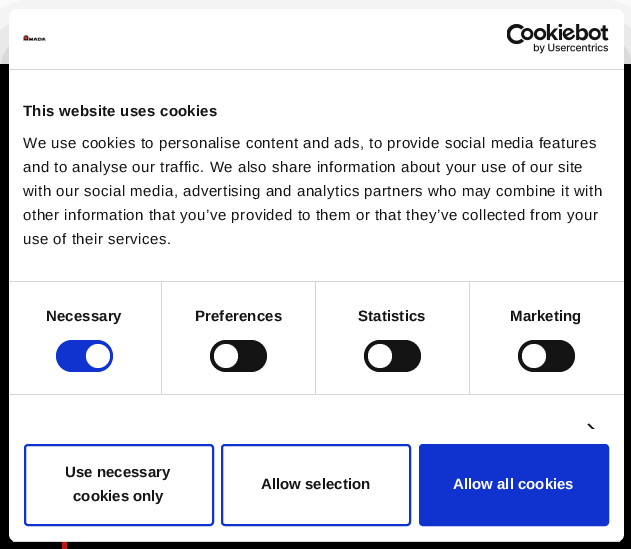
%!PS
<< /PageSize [631 549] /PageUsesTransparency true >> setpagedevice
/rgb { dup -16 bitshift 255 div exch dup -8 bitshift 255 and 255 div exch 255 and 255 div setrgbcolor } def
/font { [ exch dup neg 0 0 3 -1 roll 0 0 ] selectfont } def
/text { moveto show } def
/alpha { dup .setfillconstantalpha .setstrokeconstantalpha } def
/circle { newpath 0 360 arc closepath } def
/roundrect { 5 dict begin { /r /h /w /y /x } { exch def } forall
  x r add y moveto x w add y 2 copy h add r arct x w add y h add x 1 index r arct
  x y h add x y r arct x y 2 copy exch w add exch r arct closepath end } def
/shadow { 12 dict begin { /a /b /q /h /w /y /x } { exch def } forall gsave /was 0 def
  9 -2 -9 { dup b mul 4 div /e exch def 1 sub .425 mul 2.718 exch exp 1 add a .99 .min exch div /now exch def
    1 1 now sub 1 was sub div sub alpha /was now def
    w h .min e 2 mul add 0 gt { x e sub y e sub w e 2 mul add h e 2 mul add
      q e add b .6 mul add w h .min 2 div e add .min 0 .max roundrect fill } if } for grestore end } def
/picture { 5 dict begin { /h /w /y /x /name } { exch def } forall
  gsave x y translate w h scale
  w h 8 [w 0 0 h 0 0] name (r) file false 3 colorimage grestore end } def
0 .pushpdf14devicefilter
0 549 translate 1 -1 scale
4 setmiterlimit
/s1 { /LiberationSans-Bold 15 font 16#141414 rgb } def
/s2 { /LiberationSans-Bold 15 font 16#FFFFFF rgb } def
16#FFFFFF rgb
0 0 631 549 rectfill
16#000000 rgb
0 64 631 485 rectfill
16#FC1B1C rgb
62 542 5 7 rectfill
16#000000 rgb
9 41 615 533 8 34 0.3 shadow
16#FFFFFF rgb
9 9 615 533 8 roundrect fill
16#D6D6D6 rgb
9 69 615 1 rectfill
(pic1.raw) 23 35 23 6 picture
(pic2.raw) 507 24 102 30 picture
9 281 615 1 rectfill
/LiberationSans-Bold 15 font
16#141414 rgb
23 116 moveto 0.25 0 (This website uses cookies) ashow
/LiberationSans-Regular 15 font
23 148 moveto 0.5 0 (We use cookies to personalise content and ads, to provide social media features) ashow
23 172 moveto 0.5 0 (and to analyse our traffic. We also share information about your use of our site) ashow
23 196 moveto 0.5 0 (with our social media, advertising and analytics partners who may combine it with) ashow
23 220 moveto 0.5 0 (other information that you’ve provided to them or that they’ve collected from your) ashow
23 244 moveto 0.5 0 (use of their services.) ashow
16#D6D6D6 rgb
9 394 615 1 rectfill
161 282 1 112 rectfill
/LiberationSans-Bold 15 font
16#141414 rgb
46 321 moveto 0.1 0 (Necessary) ashow
16#1032CF rgb
56 340 57 32 16 roundrect fill
16#FFFFFF rgb
98 356 12 circle fill
16#D6D6D6 rgb
315 282 1 112 rectfill
16#141414 rgb
195 321 moveto 0.1 0 (Preferences) ashow
210 340 57 32 16 roundrect fill
16#FFFFFF rgb
226 356 12 circle fill
16#D6D6D6 rgb
469 282 1 112 rectfill
16#141414 rgb
358 321 moveto 0.1 0 (Statistics) ashow
364 340 57 32 16 roundrect fill
16#FFFFFF rgb
380 356 12 circle fill
16#141414 rgb
510 321 moveto 0.1 0 (Marketing) ashow
518 340 57 32 16 roundrect fill
16#FFFFFF rgb
534 356 12 circle fill
gsave
9 70 615 359 rectclip
16#141414 rgb
589 423.5 moveto 594.5 429 lineto 593.5 430.5 lineto 587.5 424.5 lineto closepath fill
593.5 428 moveto 594.5 429 lineto 589 435 lineto 587.5 434 lineto closepath fill
grestore
gsave
9 9 615 533 8 roundrect clip newpath
16#D6D6D6 rgb
9 541 615 1 rectfill
grestore
16#1032CF rgb
2 setlinewidth
25 445 188 80 3 roundrect stroke
s1
(Use necessary) 65 477 text
(cookies only) 73 501 text
16#1032CF rgb
222 445 188 80 3 roundrect stroke
s1
(Allow selection) 261 489 text
16#1032CF rgb
420 445 188 80 3 roundrect gsave fill grestore
stroke
s2
(Allow all cookies) 453 489 text
.poppdf14devicefilter showpage
